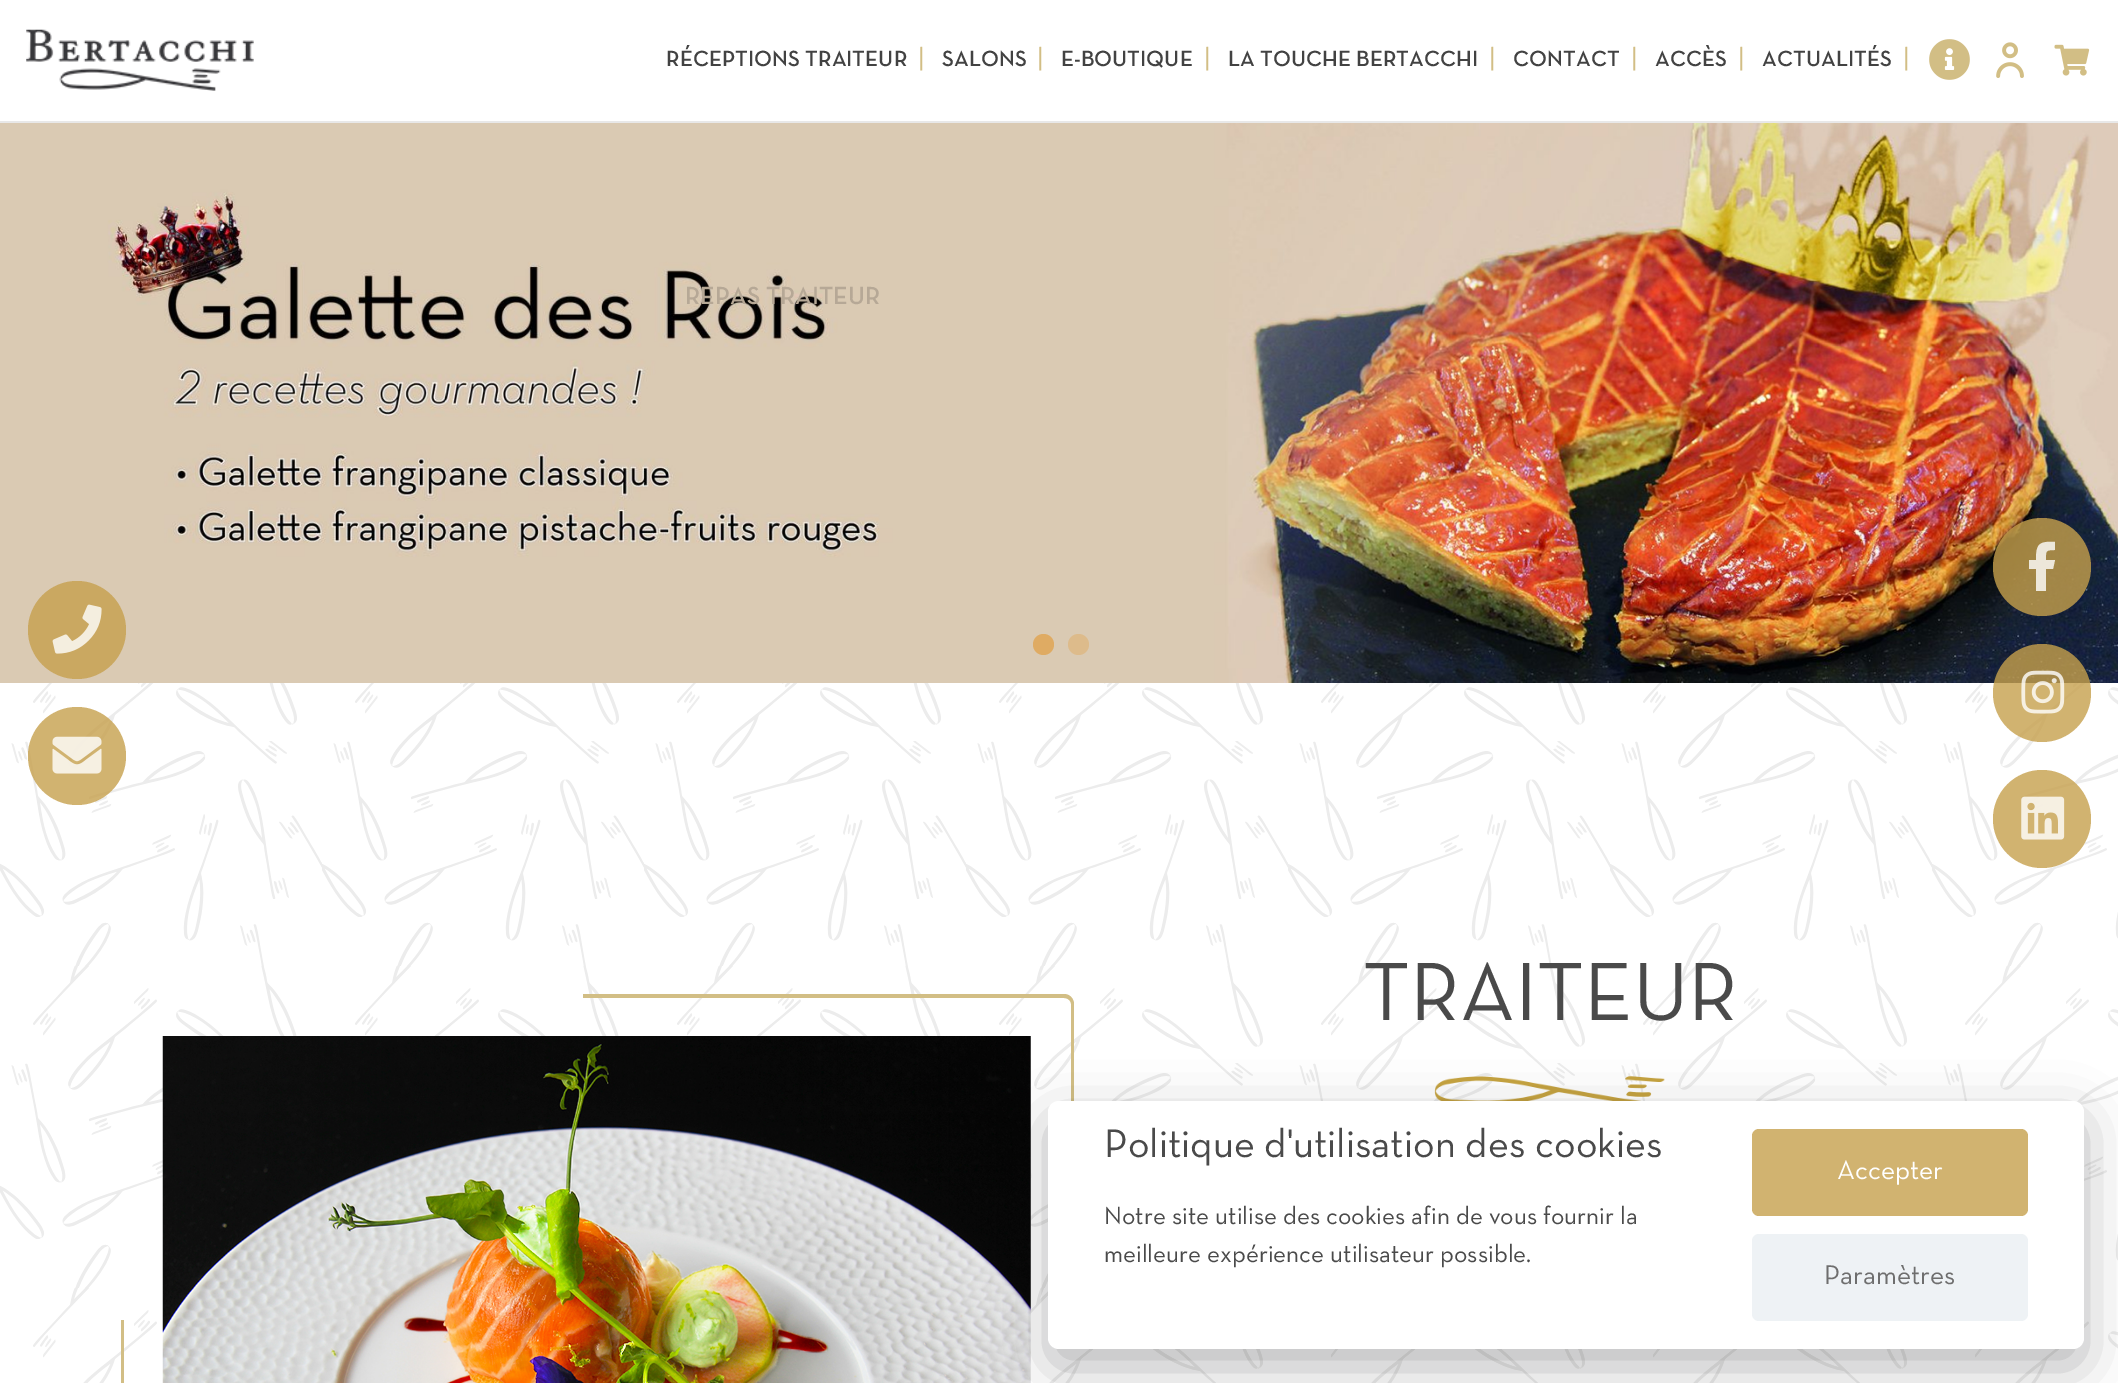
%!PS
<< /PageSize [2118 1383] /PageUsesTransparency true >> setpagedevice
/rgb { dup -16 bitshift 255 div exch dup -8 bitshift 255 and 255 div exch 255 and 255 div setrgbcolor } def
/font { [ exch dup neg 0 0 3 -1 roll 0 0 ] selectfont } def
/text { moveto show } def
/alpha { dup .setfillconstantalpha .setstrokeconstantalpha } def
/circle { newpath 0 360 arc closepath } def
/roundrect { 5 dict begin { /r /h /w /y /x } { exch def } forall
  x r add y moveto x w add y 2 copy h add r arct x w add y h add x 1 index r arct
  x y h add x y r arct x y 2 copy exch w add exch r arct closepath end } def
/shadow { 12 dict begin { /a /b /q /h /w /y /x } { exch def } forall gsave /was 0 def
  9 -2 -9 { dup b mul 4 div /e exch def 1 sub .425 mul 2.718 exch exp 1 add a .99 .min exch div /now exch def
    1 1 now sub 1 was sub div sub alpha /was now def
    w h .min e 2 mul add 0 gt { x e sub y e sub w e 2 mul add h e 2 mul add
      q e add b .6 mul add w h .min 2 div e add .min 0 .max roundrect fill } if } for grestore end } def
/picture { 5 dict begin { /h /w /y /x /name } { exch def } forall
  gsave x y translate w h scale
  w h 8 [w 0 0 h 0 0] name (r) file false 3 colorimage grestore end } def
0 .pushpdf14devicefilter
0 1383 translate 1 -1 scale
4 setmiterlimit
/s1 { /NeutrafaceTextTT-SemiBold 22.4 font 16#424242 rgb } def
/s2 { /NeutrafaceTextTT-Regular 28 font 16#D2BE85 rgb } def
/s3 { /NeutrafaceTextTT-SemiBold 25.2 font 16#B6A896 rgb } def
/s4 { /NeutrafaceTextTT-Regular 84 font 16#4A4A4A rgb } def
/s5 { /NeutrafaceTextTT-Regular 40.6 font 16#4A4A4A rgb } def
/s6 { /NeutrafaceTextTT-Regular 25.2 font 16#4A4A4A rgb } def
/s7 { /NeutrafaceTextTT-Regular 27.5 font 16#FFFFFF rgb } def
/s8 { /NeutrafaceTextTT-Regular 27.5 font 16#6E6E6E rgb } def
16#FFFFFF rgb
0 0 2118 1383 rectfill
(pic1.raw) 0 683 2118 700 picture
16#E8E8E8 rgb
0 121 2118 2 rectfill
(pic2.raw) 26 29 228 62 picture
s1
(RÉCEPTIONS TRAITEUR) 666 66 text
s2
(|) 918 67 text
(pic6.raw) 0 123 2118 560 picture
s3
(REPAS TRAITEUR) 685 304 text
s1
(SALONS) 942 66 text
s2
(|) 1037 67 text
s1
(E-BOUTIQUE) 1061 66 text
s2
(|) 1204 67 text
s1
(LA TOUCHE BERTACCHI) 1228 66 text
s2
(|) 1489 67 text
s1
(CONTACT) 1513 66 text
s2
(|) 1631 67 text
s1
(ACCÈS) 1655 66 text
s2
(|) 1738 67 text
s1
(ACTUALITÉS) 1762 66 text
s2
(|) 1903 67 text
(pic3.raw) 1929 39 41 41 picture
(pic4.raw) 1996 42 28 36 picture
(pic5.raw) 2054 44 36 32 picture
16#DFAB63 rgb
1043.5 644.5 10.5 circle fill
16#DDBB8B rgb
1078.5 644.5 10.5 circle fill
16#CAA861 rgb
77 630 49 circle fill
(pic7.raw) 52 604 50 50 picture
0.8 alpha
16#C6A04C rgb
77 756 49 circle fill
1 alpha
(pic8.raw) 52 736 50 38 picture
0.8 alpha
2042 567 49 circle fill
16#FFFFFF rgb
2053 569 moveto 2046 569 lineto 2046 591 lineto 2036 591 lineto 2036 569 lineto 2029 569 lineto 2029 560 lineto 2036 560 lineto 2036 544 2039 541 2055 542 curveto 2055 550 lineto 2045 550 2046 551 2046 560 curveto 2055 560 lineto closepath fill
16#C6A04C rgb
2042 693 49 circle fill
1 alpha
(pic9.raw) 2021 670 44 44 picture
0.8 alpha
2042 819 49 circle fill
1 alpha
(pic10.raw) 2021 796 44 44 picture
16#D2BE85 rgb
583 994 moveto 1064 994 lineto 1070 994 1074 999 1074 1004 curveto 1074 1348 lineto 583 1348 lineto closepath 583 998 moveto 1064 998 lineto 1068 998 1071 1001 1071 1004 curveto 1071 1348 lineto 583 1348 lineto closepath eofill
121 1320 moveto 611 1320 lineto 611 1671 lineto 131 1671 lineto 125 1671 121 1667 121 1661 curveto closepath 124 1320 moveto 611 1320 lineto 611 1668 lineto 131 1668 lineto 127 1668 124 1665 124 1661 curveto closepath eofill
(pic11.raw) 162 1036 869 347 picture
s4
(TRAITEUR) 1363 1020 text
(pic12.raw) 1434 1076 231 25 picture
16#020203 rgb
1048 1118 1036 249 11 26 0.28 shadow
16#FFFFFF rgb
1048 1101 1036 248 11 roundrect fill
s5
(Politique d'utilisation des cookies) 1104 1157 text
s6
(Notre site utilise des cookies afin de vous fournir la) 1104 1224 text
(meilleure expérience utilisateur possible.) 1104 1262 text
16#D1B370 rgb
1752 1129 276 87 7 roundrect fill
s7
(Accepter) 1837 1179 text
16#EEF2F5 rgb
1752 1234 276 87 7 roundrect fill
s8
(Paramètres) 1824 1284 text
.poppdf14devicefilter showpage
